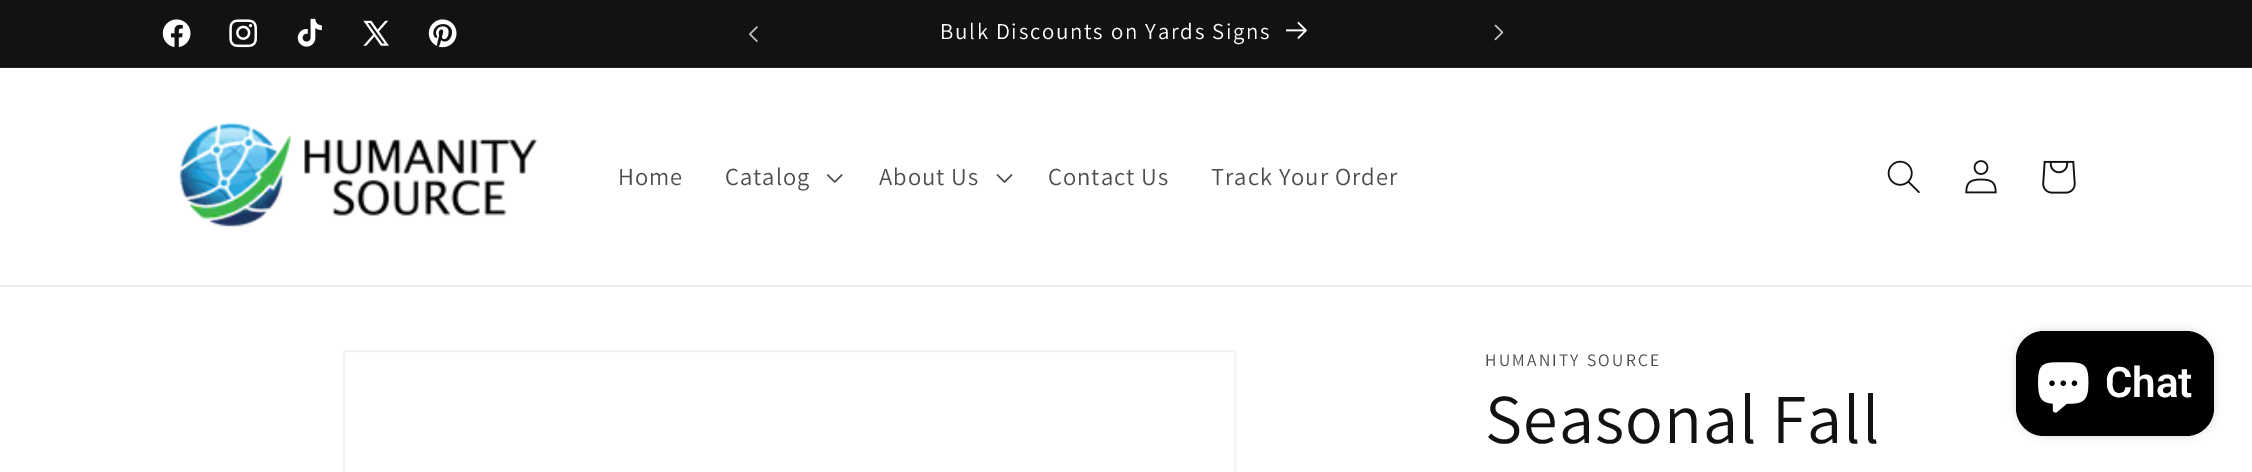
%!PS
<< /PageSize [2252 472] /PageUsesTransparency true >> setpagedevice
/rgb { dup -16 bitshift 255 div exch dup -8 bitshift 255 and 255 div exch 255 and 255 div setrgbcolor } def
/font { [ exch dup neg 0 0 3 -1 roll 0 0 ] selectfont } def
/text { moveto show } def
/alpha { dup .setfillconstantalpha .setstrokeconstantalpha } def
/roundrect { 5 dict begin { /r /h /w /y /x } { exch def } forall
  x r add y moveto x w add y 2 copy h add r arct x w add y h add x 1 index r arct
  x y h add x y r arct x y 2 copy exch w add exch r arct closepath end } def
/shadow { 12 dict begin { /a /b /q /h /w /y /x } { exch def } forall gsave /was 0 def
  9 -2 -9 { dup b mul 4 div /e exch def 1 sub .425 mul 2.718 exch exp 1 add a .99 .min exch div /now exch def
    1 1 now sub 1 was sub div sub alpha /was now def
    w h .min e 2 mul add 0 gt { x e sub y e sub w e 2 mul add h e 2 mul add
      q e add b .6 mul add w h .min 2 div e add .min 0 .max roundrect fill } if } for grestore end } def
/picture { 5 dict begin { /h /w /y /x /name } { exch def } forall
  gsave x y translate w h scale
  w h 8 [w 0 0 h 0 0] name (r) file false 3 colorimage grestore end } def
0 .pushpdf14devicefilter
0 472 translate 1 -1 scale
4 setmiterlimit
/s1 { /Roboto-SemiBold 42 font 16#FFFFFF rgb } def
16#FFFFFF rgb
0 0 2252 472 rectfill
16#121212 rgb
0 0 2252 67 rectfill
16#252525 rgb
0 67 2252 1 rectfill
(pic1.raw) 162 19 29 29 picture
(pic2.raw) 229 19 28 29 picture
(pic3.raw) 297 18 25 29 picture
(pic4.raw) 363 20 26 26 picture
(pic5.raw) 428 19 29 29 picture
(pic6.raw) 749 26 9 16 picture
/Assistant-Regular 22.75 font
16#FFFFFF rgb
940 39 moveto 1.75 0 (Bulk Discounts on Yards Signs) ashow
(pic7.raw) 1286 21 21 18 picture
(pic8.raw) 1494 24 10 17 picture
16#ECECEC rgb
0 285 2252 2 rectfill
(pic9.raw) 179 122 359 106 picture
/Assistant-Regular 24.5 font
16#4D4D4D rgb
618 185 moveto 1 0 (Home) ashow
725 185 moveto 1 0 (Catalog) ashow
(pic10.raw) 827 174 16 9 picture
879 185 moveto 1 0 (About Us) ashow
(pic11.raw) 996 174 17 9 picture
1048 185 moveto 1 0 (Contact Us) ashow
1211 185 moveto 1 0 (Track Your Order) ashow
(pic12.raw) 1887 160 33 34 picture
(pic13.raw) 1965 160 32 34 picture
(pic14.raw) 2042 160 34 34 picture
16#F3F3F3 rgb
2 setlinewidth
344 351 891 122 rectstroke
/Assistant-Regular 17.5 font
16#4D4D4D rgb
1485 366 moveto 2.25 0 (HUMANITY SOURCE) ashow
/Assistant-Regular 70 font
16#121212 rgb
1485 443 moveto 1 0 (Seasonal Fall) ashow
16#000000 rgb
2016 331 198 105 28 4.5 0.15 shadow
2016 331 198 105 28 roundrect fill
(pic15.raw) 2038 362 51 51 picture
s1
(Chat) 2105 397 text
.poppdf14devicefilter showpage
